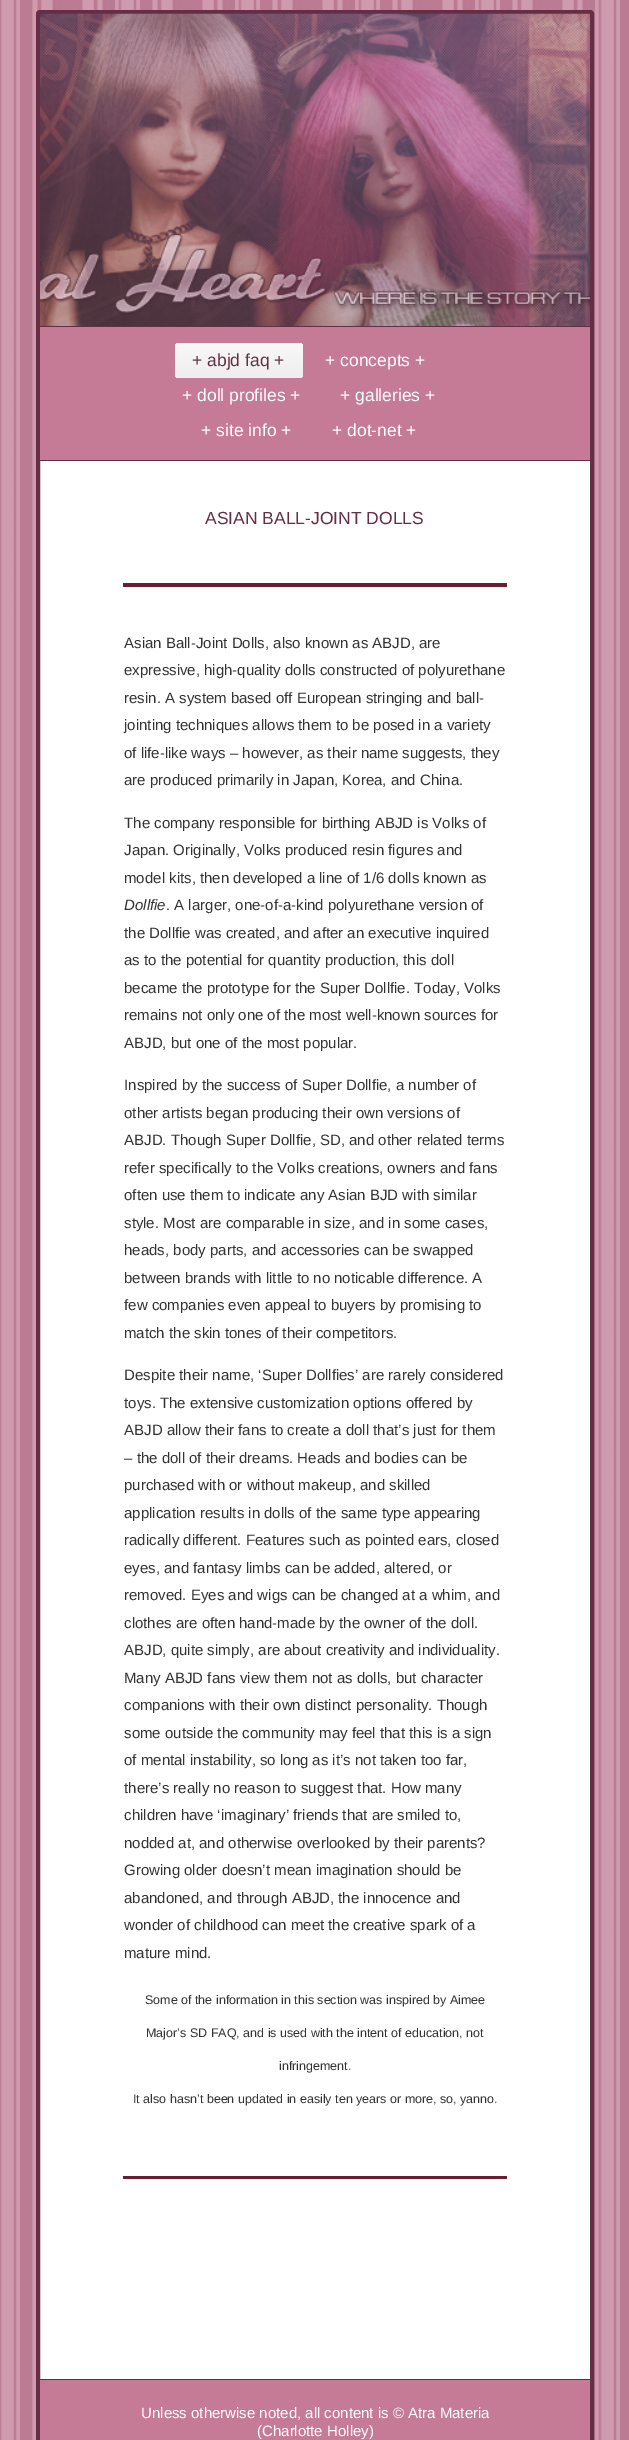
%!PS
<< /PageSize [629 2440] >> setpagedevice
/rgb { dup -16 bitshift 255 div exch dup -8 bitshift 255 and 255 div exch 255 and 255 div setrgbcolor } def
/font { [ exch dup neg 0 0 3 -1 roll 0 0 ] selectfont } def
/text { moveto show } def
/roundrect { 5 dict begin { /r /h /w /y /x } { exch def } forall
  x r add y moveto x w add y 2 copy h add r arct x w add y h add x 1 index r arct
  x y h add x y r arct x y 2 copy exch w add exch r arct closepath end } def
/picture { 5 dict begin { /h /w /y /x /name } { exch def } forall
  gsave x y translate w h scale
  w h 8 [w 0 0 h 0 0] name (r) file false 3 colorimage grestore end } def
0 2440 translate 1 -1 scale
4 setmiterlimit
/s1 { /LiberationSans-Regular 17.5 font 16#662E44 rgb } def
/s2 { /LiberationSans-Regular 17.5 font 16#FFFFFF rgb } def
/s3 { /LiberationSans-Regular 15 font 16#333333 rgb } def
/s4 { /LiberationSans-Italic 15 font 16#333333 rgb } def
/s5 { /LiberationSans-Regular 12.5 font 16#333333 rgb } def
/s6 { /LiberationSans-Regular 15 font 16#FFFFFF rgb } def
16#FFFFFF rgb
0 0 629 2440 rectfill
(pic1.raw) 0 0 629 2440 picture
38 12 554 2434 2 roundrect gsave fill grestore
16#662E44 rgb
4 setlinewidth
stroke
(pic2.raw) 40 13 550 313 picture
16#C57A96 rgb
40 327 550 133 rectfill
16#662E44 rgb
40 326 550 1 rectfill
40 460 550 1 rectfill
gsave 175 343 128 35 4 roundrect clip newpath
<< /ShadingType 2 /ColorSpace /DeviceRGB /Coords [239 343 239 378] /Extend [true true] /Function << /FunctionType 2 /Domain [0 1] /C0 [0.973 0.973 0.973] /C1 [0.933 0.933 0.933] /N 1 >> >> shfill grestore
s1
(+ abjd faq +) 192 366 text
s2
(+ concepts +) 325 366 text
(+ doll profiles +) 182 401 text
(+ galleries +) 340 401 text
(+ site info +) 201 436 text
(+ dot-net +) 332 436 text
16#691E33 rgb
123 2176 384 3 rectfill
s1
(ASIAN BALL-JOINT DOLLS) 205 524 text
16#691E33 rgb
123 583 384 4 rectfill
s3
(Asian Ball-Joint Dolls, also known as ABJD, are) 124 648 text
(expressive, high-quality dolls constructed of polyurethane) 124 675 text
(resin. A system based off European stringing and ball-) 124 703 text
(jointing techniques allows them to be posed in a variety) 124 730 text
(of life-like ways – however, as their name suggests, they) 124 758 text
(are produced primarily in Japan, Korea, and China.) 124 785 text
(The company responsible for birthing ABJD is Volks of) 124 828 text
(Japan. Originally, Volks produced resin figures and) 124 855 text
(model kits, then developed a line of 1/6 dolls known as) 124 883 text
s4
(Dollfie) 124 910 text
s3
(. A larger, one-of-a-kind polyurethane version of) 166 910 text
(the Dollfie was created, and after an executive inquired) 124 938 text
(as to the potential for quantity production, this doll) 124 965 text
(became the prototype for the Super Dollfie. Today, Volks) 124 993 text
(remains not only one of the most well-known sources for) 124 1020 text
(ABJD, but one of the most popular.) 124 1048 text
(Inspired by the success of Super Dollfie, a number of) 124 1090 text
(other artists began producing their own versions of) 124 1118 text
(ABJD. Though Super Dollfie, SD, and other related terms) 124 1145 text
(refer specifically to the Volks creations, owners and fans) 124 1173 text
(often use them to indicate any Asian BJD with similar) 124 1200 text
(style. Most are comparable in size, and in some cases,) 124 1228 text
(heads, body parts, and accessories can be swapped) 124 1255 text
(between brands with little to no noticable difference. A) 124 1283 text
(few companies even appeal to buyers by promising to) 124 1310 text
(match the skin tones of their competitors.) 124 1338 text
(Despite their name, ‘Super Dollfies’ are rarely considered) 124 1380 text
(toys. The extensive customization options offered by) 124 1408 text
(ABJD allow their fans to create a doll that’s just for them) 124 1435 text
(– the doll of their dreams. Heads and bodies can be) 124 1463 text
(purchased with or without makeup, and skilled) 124 1490 text
(application results in dolls of the same type appearing) 124 1518 text
(radically different. Features such as pointed ears, closed) 124 1545 text
(eyes, and fantasy limbs can be added, altered, or) 124 1573 text
(removed. Eyes and wigs can be changed at a whim, and) 124 1600 text
(clothes are often hand-made by the owner of the doll.) 124 1628 text
(ABJD, quite simply, are about creativity and individuality.) 124 1655 text
(Many ABJD fans view them not as dolls, but character) 124 1683 text
(companions with their own distinct personality. Though) 124 1710 text
(some outside the community may feel that this is a sign) 124 1738 text
(of mental instability, so long as it’s not taken too far,) 124 1765 text
(there’s really no reason to suggest that. How many) 124 1793 text
(children have ‘imaginary’ friends that are smiled to,) 124 1820 text
(nodded at, and otherwise overlooked by their parents?) 124 1848 text
(Growing older doesn’t mean imagination should be) 124 1875 text
(abandoned, and through ABJD, the innocence and) 124 1903 text
(wonder of childhood can meet the creative spark of a) 124 1930 text
(mature mind.) 124 1958 text
s5
(Some of the information in this section was inspired by Aimee) 145 2004 text
(Major’s SD FAQ, and is used with the intent of education, not) 146 2037 text
(infringement.) 279 2070 text
(It also hasn’t been updated in easily ten years or more, so, yanno.) 133 2103 text
16#C57A96 rgb
40 2380 550 60 rectfill
16#662E44 rgb
40 2379 550 1 rectfill
s6
(Unless otherwise noted, all content is © Atra Materia) 141 2418 text
(\(Charlotte Holley\)) 257 2436 text
showpage
